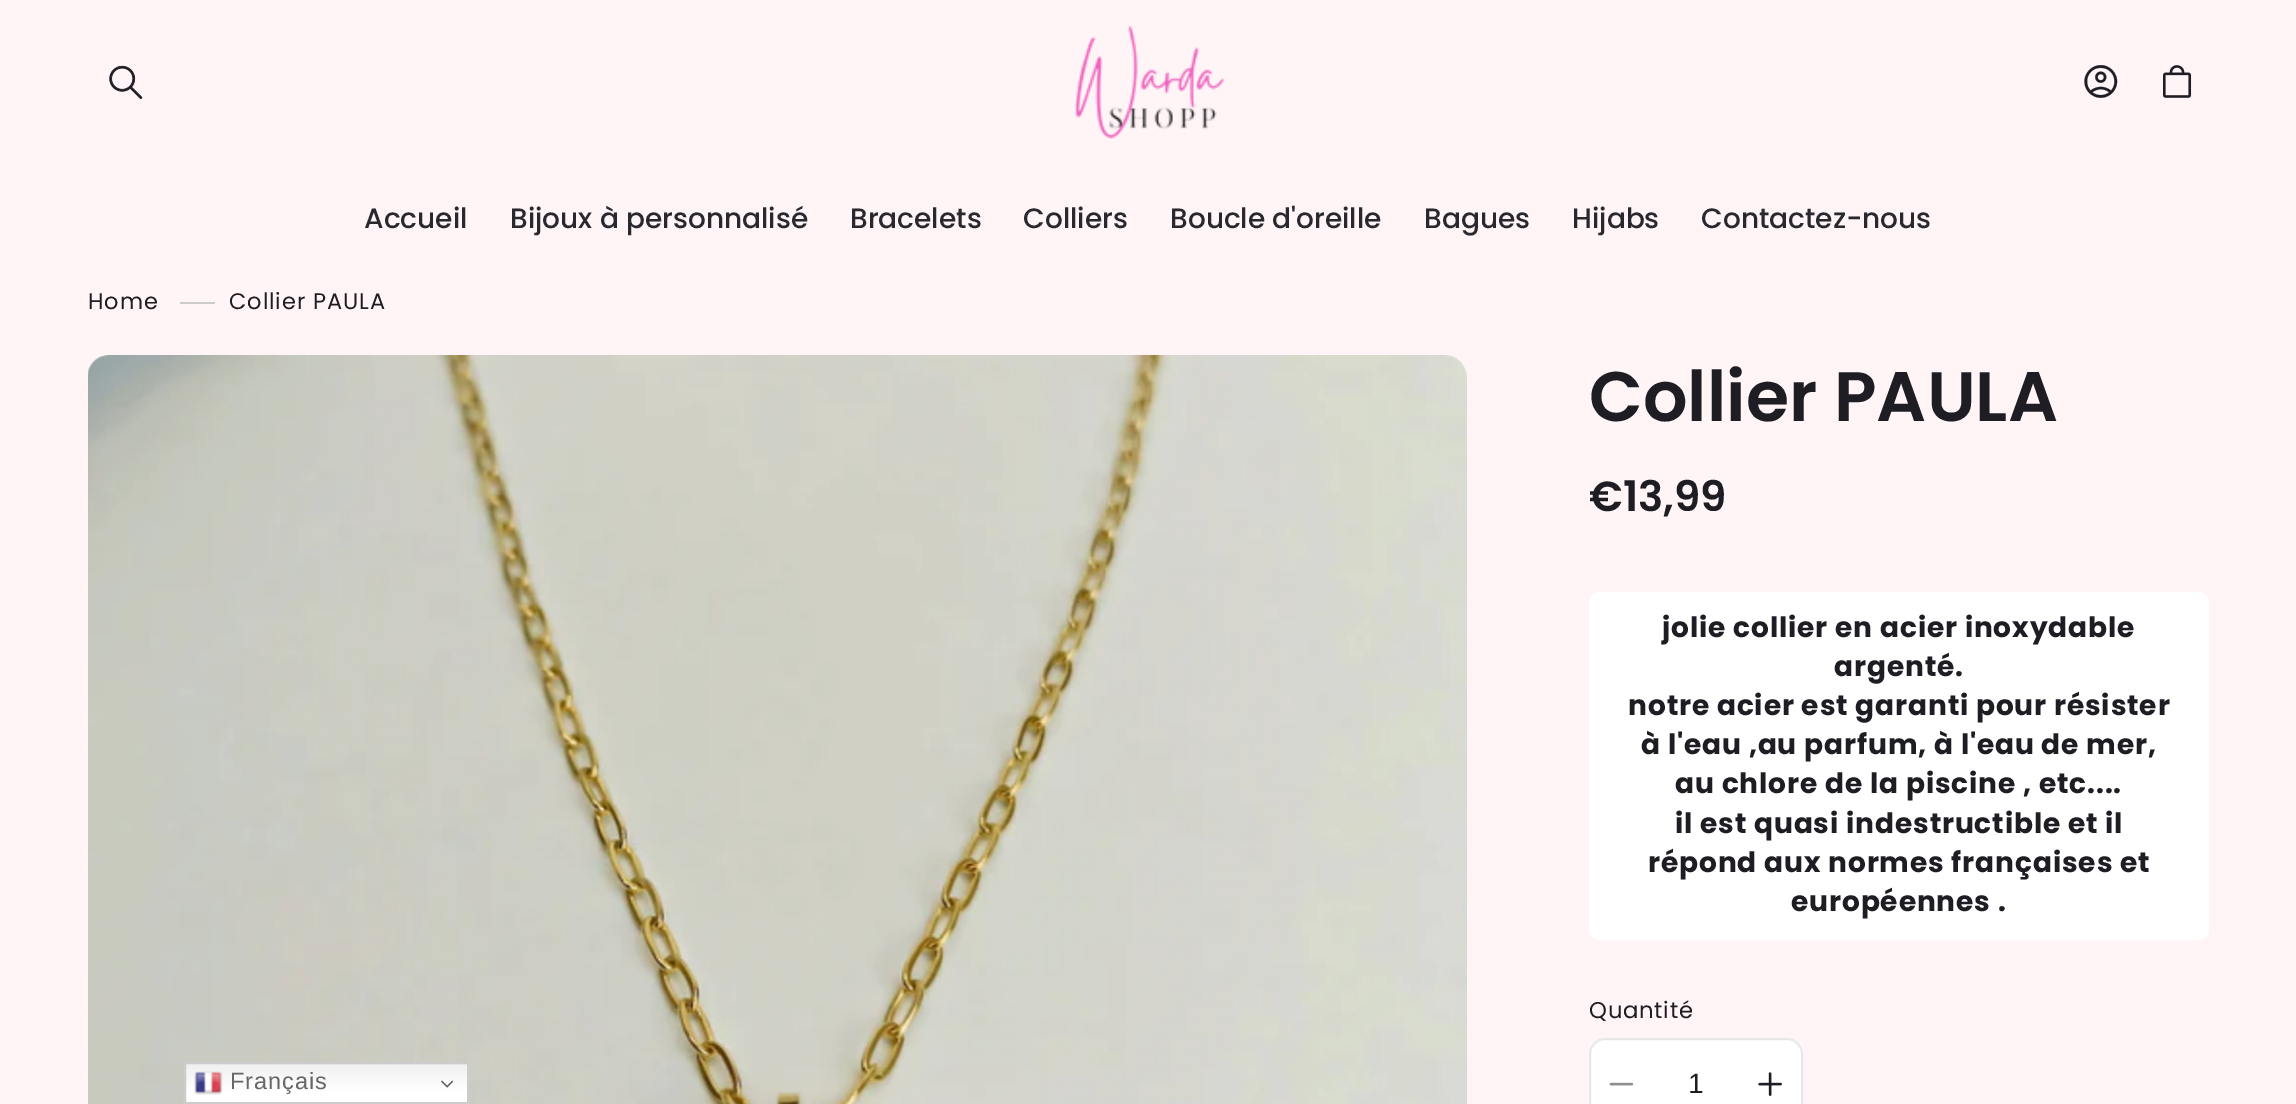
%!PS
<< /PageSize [2296 1104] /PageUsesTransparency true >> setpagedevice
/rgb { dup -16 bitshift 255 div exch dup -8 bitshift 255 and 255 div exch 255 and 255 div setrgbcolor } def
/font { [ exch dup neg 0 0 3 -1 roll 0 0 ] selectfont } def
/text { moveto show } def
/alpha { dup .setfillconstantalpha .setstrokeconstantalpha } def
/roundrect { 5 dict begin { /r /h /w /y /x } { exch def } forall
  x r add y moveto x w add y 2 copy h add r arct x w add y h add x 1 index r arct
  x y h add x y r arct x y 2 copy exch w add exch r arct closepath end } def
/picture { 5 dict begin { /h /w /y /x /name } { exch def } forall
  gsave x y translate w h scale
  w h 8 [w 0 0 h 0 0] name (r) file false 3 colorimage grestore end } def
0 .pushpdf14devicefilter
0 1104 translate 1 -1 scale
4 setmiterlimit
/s1 { /Poppins-Medium 28 font 16#2A282F rgb } def
/s2 { /Poppins-SemiBold 70 font 16#1F1D24 rgb } def
/s3 { /Poppins-SemiBold 42 font 16#1F1D24 rgb } def
/s4 { /LiberationSans-Regular 28 font 16#1F1D24 rgb } def
16#FFF5F7 rgb
0 0 2296 1104 rectfill
(pic1.raw) 109 65 34 34 picture
(pic2.raw) 1074 25 151 114 picture
(pic3.raw) 2084 65 34 33 picture
(pic4.raw) 2163 65 29 33 picture
s1
(Accueil) 364 228 text
(Bijoux à personnalisé) 510 228 text
(Bracelets) 850 228 text
(Colliers) 1023 228 text
(Boucle d'oreille) 1170 228 text
(Bagues) 1424 228 text
(Hijabs) 1572 228 text
(Contactez-nous) 1701 228 text
/Poppins-Regular 22.5 font
16#1F1D24 rgb
88 309 moveto 0.9 0 (Home) ashow
16#CBCBCB rgb
180 302 35 2 rectfill
16#1F1D24 rgb
229 309 moveto 0.9 0 (Collier PAULA) ashow
(pic5.raw) 88 355 1379 749 picture
s2
(Collier PAULA) 1589 421 text
s3
(€13,99) 1589 511 text
16#FFFFFF rgb
1589 592 620 348 11 roundrect fill
/Poppins-Bold 28 font
16#1F1D24 rgb
1662 637 moveto 0.9 0 (jolie collier en acier inoxydable) ashow
1834 676 moveto 0.9 0 (argenté.) ashow
1628 715 moveto 0.9 0 (notre acier est garanti pour résister) ashow
1641 754 moveto 0.9 0 (à l'eau ,au parfum, à l'eau de mer,) ashow
1675 793 moveto 0.9 0 (au chlore de la piscine , etc....) ashow
1675 833 moveto 0.9 0 (il est quasi indestructible et il) ashow
1648 872 moveto 0.9 0 (répond aux normes françaises et) ashow
1791 911 moveto 0.9 0 (européennes .) ashow
/Poppins-Regular 22.75 font
1589 1018 moveto 0.75 0 (Quantité) ashow
16#FFFFFF rgb
1589 1038 214 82 16 roundrect fill
0.1 alpha
16#1F1D24 rgb
2 setlinewidth
1590 1039 212 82 15 roundrect stroke
1 alpha
(pic6.raw) 1609 1082 25 4 picture
s4
(1) 1688 1093 text
(pic7.raw) 1758 1072 24 24 picture
gsave 186 1064 moveto 467 1064 lineto 467 1102 lineto 186 1102 lineto closepath clip newpath
<< /ShadingType 2 /ColorSpace /DeviceRGB /Coords [326 1062 326 1104] /Extend [true true] /Function << /FunctionType 3 /Domain [0 1] /Functions [<< /FunctionType 2 /Domain [0 1] /C0 [0.937 0.937 0.937] /C1 [1 1 1] /N 1 >> << /FunctionType 2 /Domain [0 1] /C0 [1 1 1] /C1 [1 1 1] /N 1 >>] /Bounds [0.7] /Encode [0 1 0 1] >> >> shfill grestore
16#CCCCCC rgb
185 1063 283 40 rectstroke
(pic8.raw) 194 1071 29 24 picture
/LiberationSans-Regular 23.5 font
16#666666 rgb
230 1089 moveto 0.9 0 (Français) ashow
(pic9.raw) 441 1080 12 8 picture
.poppdf14devicefilter showpage
